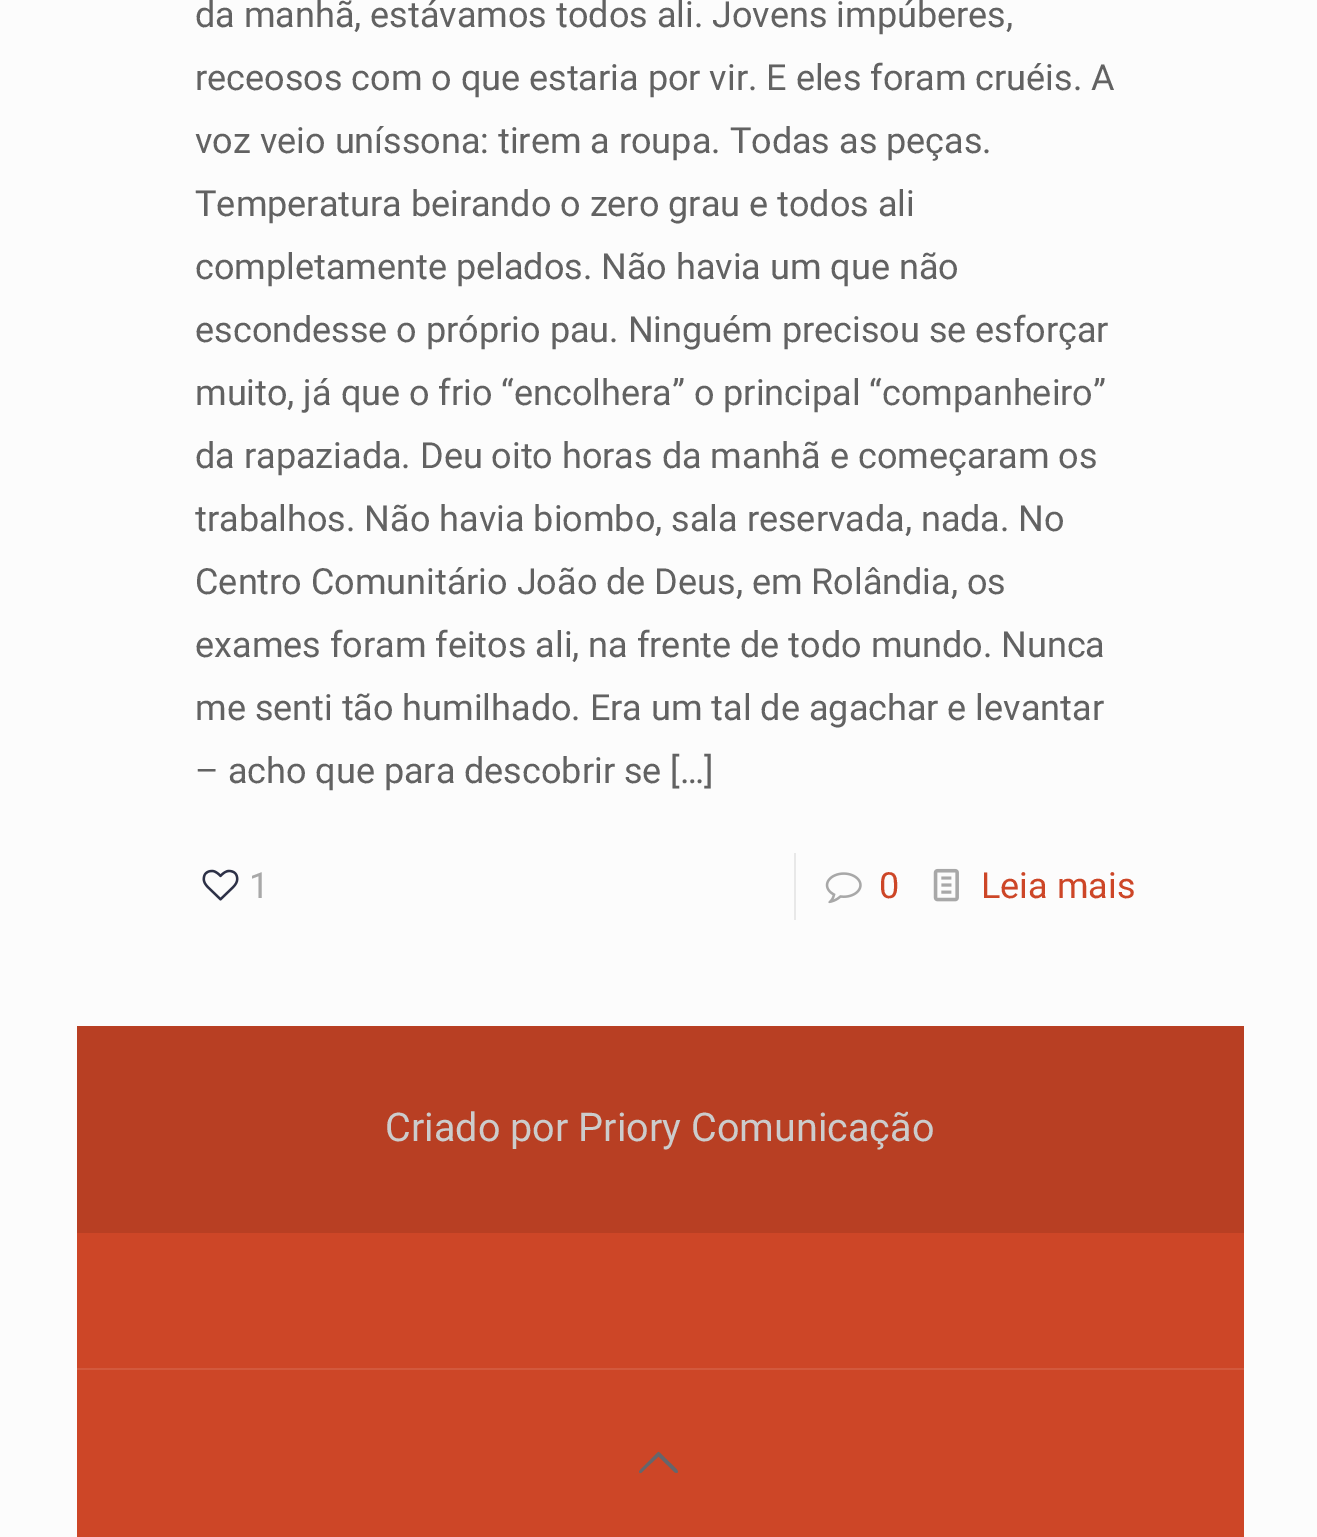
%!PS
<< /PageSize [1317 1537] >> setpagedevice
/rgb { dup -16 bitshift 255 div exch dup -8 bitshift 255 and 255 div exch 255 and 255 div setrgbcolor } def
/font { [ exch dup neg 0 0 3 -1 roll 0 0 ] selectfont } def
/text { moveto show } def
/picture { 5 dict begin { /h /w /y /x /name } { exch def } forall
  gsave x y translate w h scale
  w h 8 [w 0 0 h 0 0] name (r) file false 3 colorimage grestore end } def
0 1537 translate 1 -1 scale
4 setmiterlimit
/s1 { /Roboto-Regular 36 font 16#626262 rgb } def
/s2 { /Roboto-Regular 36 font 16#A8A8A8 rgb } def
/s3 { /Roboto-Regular 36 font 16#CD4627 rgb } def
/s4 { /Roboto-Regular 39.6 font 16#CCCCCC rgb } def
16#FCFCFC rgb
0 0 1317 1537 rectfill
s1
(da manhã, estávamos todos ali. Jovens impúberes,) 195 27 text
(receosos com o que estaria por vir. E eles foram cruéis. A) 195 90 text
(voz veio uníssona: tirem a roupa. Todas as peças.) 195 153 text
(Temperatura beirando o zero grau e todos ali) 195 216 text
(completamente pelados. Não havia um que não) 195 279 text
(escondesse o próprio pau. Ninguém precisou se esforçar) 195 342 text
(muito, já que o frio “encolhera” o principal “companheiro”) 195 405 text
(da rapaziada. Deu oito horas da manhã e começaram os) 195 468 text
(trabalhos. Não havia biombo, sala reservada, nada. No) 195 531 text
(Centro Comunitário João de Deus, em Rolândia, os) 195 594 text
(exames foram feitos ali, na frente de todo mundo. Nunca) 195 657 text
(me senti tão humilhado. Era um tal de agachar e levantar) 195 720 text
(– acho que para descobrir se […]) 195 783 text
(pic1.raw) 202 869 37 32 picture
s2
(1) 249 898 text
16#E8E8E8 rgb
794 853 2 67 rectfill
(pic2.raw) 825 872 37 32 picture
s3
(0) 879 898 text
(pic3.raw) 933 868 26 34 picture
(Leia mais) 981 898 text
77 1233 1167 304 rectfill
16#B83F23 rgb
77 1026 1167 207 rectfill
s4
(Criado por Priory Comunicação) 385 1141 text
16#D2593D rgb
77 1368 1167 2 rectfill
16#65666C rgb
675 1472.5 moveto 658.5 1456.5 lineto 644.5 1469.5 lineto 643.5 1470.5 640.5 1475 639 1472 curveto 639.5 1470.5 lineto 658 1452 lineto 659.5 1451.5 664.5 1457.5 665.5 1458.5 curveto 674.5 1467 lineto 674.5 1467.5 680.5 1472 676.5 1473 curveto closepath fill
showpage
